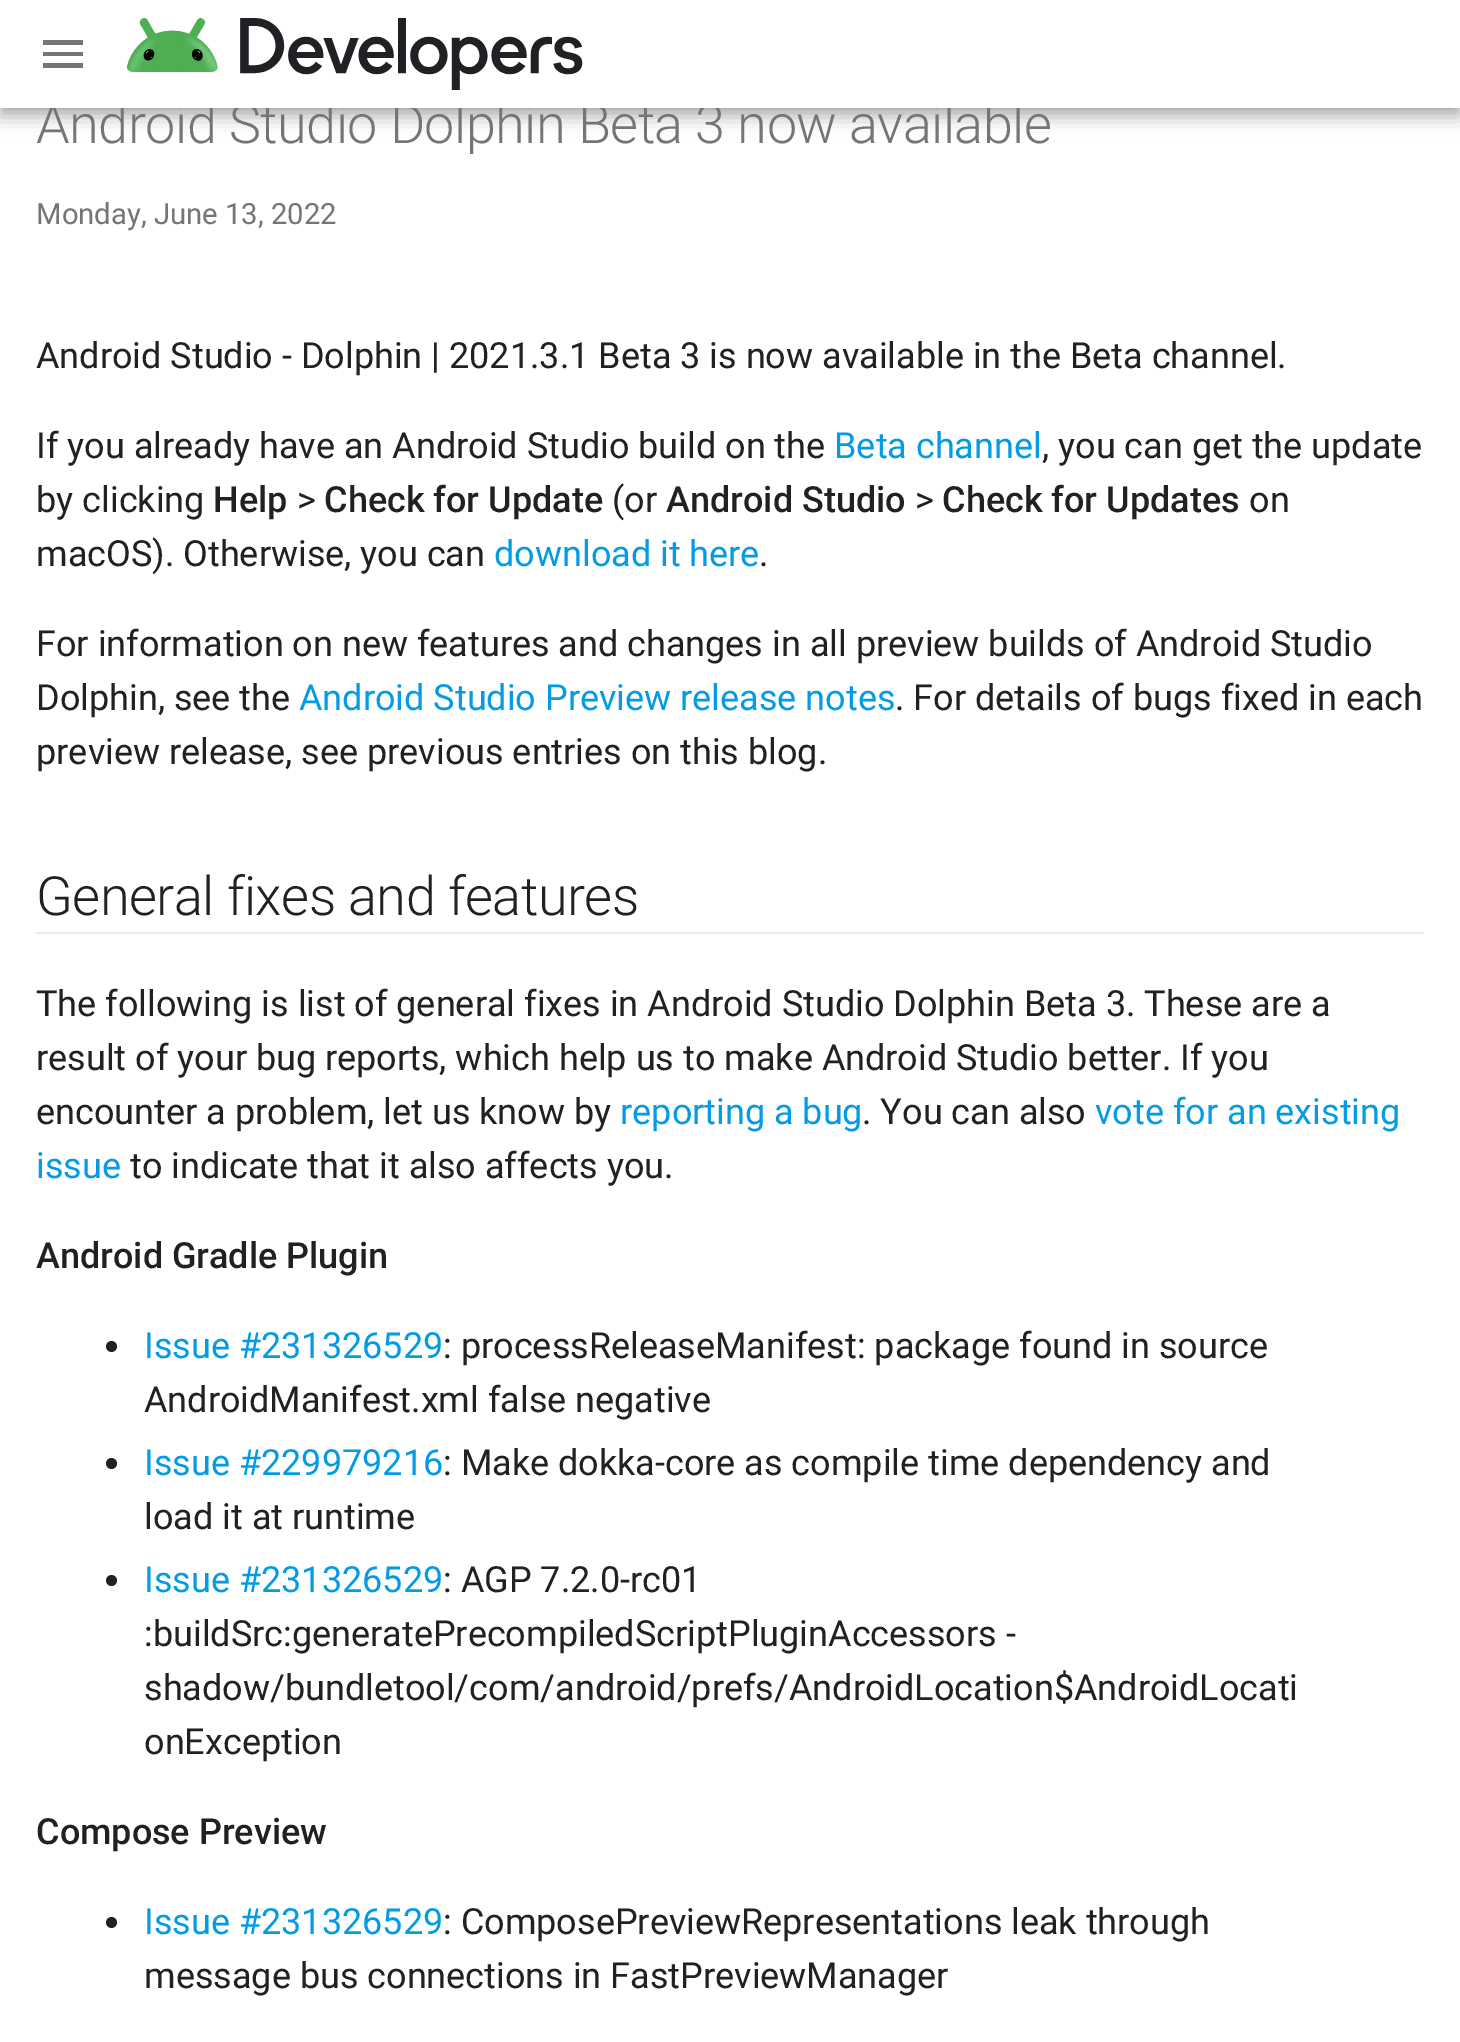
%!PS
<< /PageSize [1460 2042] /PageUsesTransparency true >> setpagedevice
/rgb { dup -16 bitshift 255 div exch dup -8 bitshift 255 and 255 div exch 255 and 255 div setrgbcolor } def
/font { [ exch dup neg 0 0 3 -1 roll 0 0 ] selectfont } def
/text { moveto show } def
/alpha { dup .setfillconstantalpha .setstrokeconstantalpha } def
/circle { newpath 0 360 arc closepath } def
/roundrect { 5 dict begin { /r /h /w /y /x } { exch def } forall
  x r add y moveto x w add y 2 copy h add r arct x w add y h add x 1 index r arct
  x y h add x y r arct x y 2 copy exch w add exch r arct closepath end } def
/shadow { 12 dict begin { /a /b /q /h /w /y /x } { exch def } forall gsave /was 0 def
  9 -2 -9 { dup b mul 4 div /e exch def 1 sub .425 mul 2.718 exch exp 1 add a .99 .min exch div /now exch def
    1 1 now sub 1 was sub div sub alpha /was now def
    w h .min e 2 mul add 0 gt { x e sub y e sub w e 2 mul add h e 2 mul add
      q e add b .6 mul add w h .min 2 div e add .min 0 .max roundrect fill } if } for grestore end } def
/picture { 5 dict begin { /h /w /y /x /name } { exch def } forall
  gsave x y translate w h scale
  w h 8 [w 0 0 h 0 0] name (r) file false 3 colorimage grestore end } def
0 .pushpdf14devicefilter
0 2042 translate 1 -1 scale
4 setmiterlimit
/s1 { /Roboto-Regular 29.25 font 16#757575 rgb } def
/s2 { /Roboto-Regular 36 font 16#212121 rgb } def
/s3 { /Roboto-Regular 36 font 16#039BE5 rgb } def
/s4 { /Roboto-Medium 36 font 16#212121 rgb } def
16#FFFFFF rgb
0 0 1460 2042 rectfill
16#000000 rgb
0 9 1460 108 0 9 0.28 shadow
0 0 1460 108 0 4.5 0.14 shadow
/Roboto-Light 54 font
16#757575 rgb
36 143 moveto -0.55 0 (Android Studio Dolphin Beta 3 now available) ashow
16#FFFFFF rgb
0 0 1460 108 rectfill
16#757575 rgb
43 40 moveto 83 40 lineto 83 45 lineto 43 45 lineto closepath 43 56 moveto 43 52 lineto 83 52 lineto 83 56 lineto closepath 43 68 moveto 43 63 lineto 83 63 lineto 83 68 lineto closepath fill
(pic1.raw) 126 18 457 72 picture
s1
(Monday, June 13, 2022) 36 224 text
s2
(Android Studio - Dolphin | 2021.3.1 Beta 3 is now available in the Beta channel.) 36 368 text
(If you already have an Android Studio build on the) 36 458 text
s3
(Beta channel) 834 458 text
s2
(, you can get the update) 1042 458 text
(by clicking) 36 512 text
s4
(Help) 213 512 text
s2
(>) 297 512 text
s4
(Check for Update) 324 512 text
s2
(\(or) 612 512 text
s4
(Android Studio) 666 512 text
s2
(>) 915 512 text
s4
(Check for Updates) 942 512 text
s2
(on) 1249 512 text
(macOS\). Otherwise, you can) 36 566 text
s3
(download it here) 494 566 text
s2
(.) 759 566 text
(For information on new features and changes in all preview builds of Android Studio) 36 656 text
(Dolphin, see the) 36 710 text
s3
(Android Studio Preview release notes) 299 710 text
s2
(. For details of bugs fixed in each) 895 710 text
(preview release, see previous entries on this blog.) 36 764 text
16#EBEBEB rgb
36 932 1388 2 rectfill
/Roboto-Light 54 font
16#212121 rgb
36 915 moveto -0.55 0 (General fixes and features) ashow
s2
(The following is list of general fixes in Android Studio Dolphin Beta 3. These are a) 36 1016 text
(result of your bug reports, which help us to make Android Studio better. If you) 36 1070 text
(encounter a problem, let us know by) 36 1124 text
s3
(reporting a bug) 620 1124 text
s2
(. You can also) 862 1124 text
s3
(vote for an existing) 1095 1124 text
(issue) 36 1178 text
s2
(to indicate that it also affects you.) 130 1178 text
s4
(Android Gradle Plugin) 36 1268 text
111.5 1346.5 5.5 circle fill
s3
(Issue #231326529) 144 1358 text
s2
(: processReleaseManifest: package found in source) 443 1358 text
(AndroidManifest.xml false negative) 144 1412 text
111.5 1463.5 5.5 circle fill
s3
(Issue #229979216) 144 1475 text
s2
(: Make dokka-core as compile time dependency and) 443 1475 text
(load it at runtime) 144 1529 text
111.5 1580.5 5.5 circle fill
s3
(Issue #231326529) 144 1592 text
s2
(: AGP 7.2.0-rc01) 443 1592 text
(:buildSrc:generatePrecompiledScriptPluginAccessors -) 144 1646 text
(shadow/bundletool/com/android/prefs/AndroidLocation$AndroidLocati) 144 1700 text
(onException) 144 1754 text
s4
(Compose Preview) 36 1844 text
111.5 1922.5 5.5 circle fill
s3
(Issue #231326529) 144 1934 text
s2
(: ComposePreviewRepresentations leak through) 443 1934 text
(message bus connections in FastPreviewManager) 144 1988 text
.poppdf14devicefilter showpage
